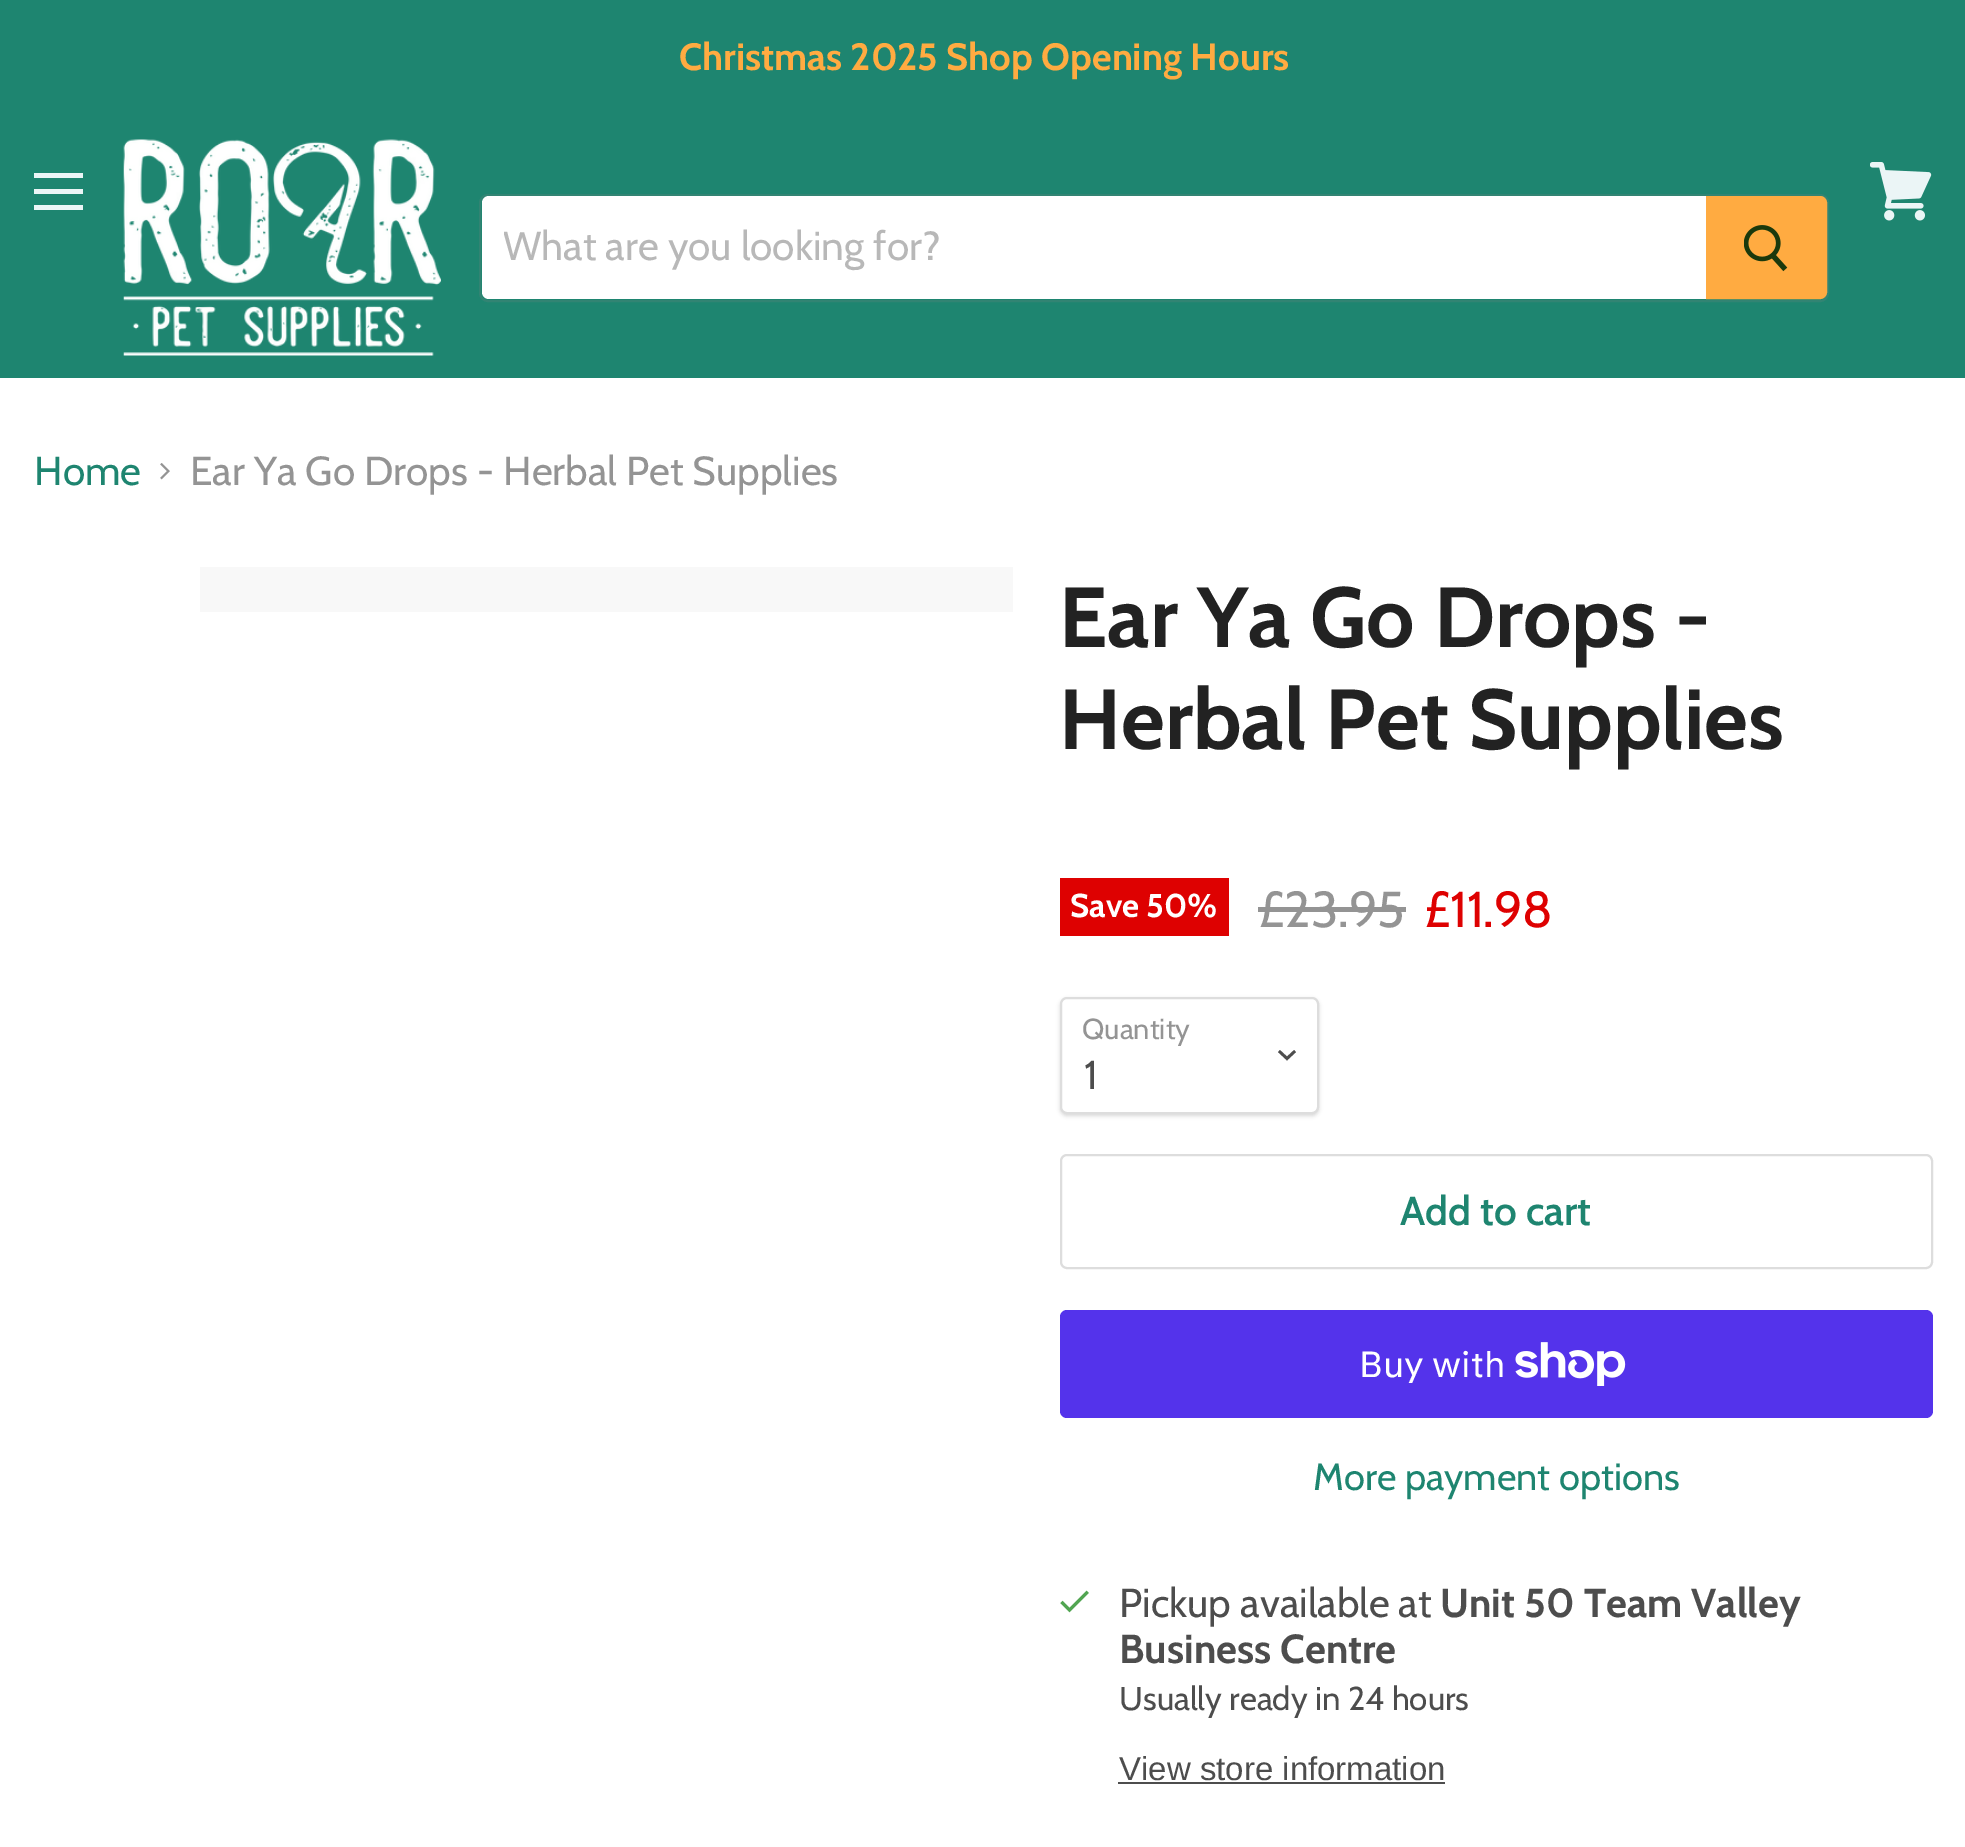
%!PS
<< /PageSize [1965 1847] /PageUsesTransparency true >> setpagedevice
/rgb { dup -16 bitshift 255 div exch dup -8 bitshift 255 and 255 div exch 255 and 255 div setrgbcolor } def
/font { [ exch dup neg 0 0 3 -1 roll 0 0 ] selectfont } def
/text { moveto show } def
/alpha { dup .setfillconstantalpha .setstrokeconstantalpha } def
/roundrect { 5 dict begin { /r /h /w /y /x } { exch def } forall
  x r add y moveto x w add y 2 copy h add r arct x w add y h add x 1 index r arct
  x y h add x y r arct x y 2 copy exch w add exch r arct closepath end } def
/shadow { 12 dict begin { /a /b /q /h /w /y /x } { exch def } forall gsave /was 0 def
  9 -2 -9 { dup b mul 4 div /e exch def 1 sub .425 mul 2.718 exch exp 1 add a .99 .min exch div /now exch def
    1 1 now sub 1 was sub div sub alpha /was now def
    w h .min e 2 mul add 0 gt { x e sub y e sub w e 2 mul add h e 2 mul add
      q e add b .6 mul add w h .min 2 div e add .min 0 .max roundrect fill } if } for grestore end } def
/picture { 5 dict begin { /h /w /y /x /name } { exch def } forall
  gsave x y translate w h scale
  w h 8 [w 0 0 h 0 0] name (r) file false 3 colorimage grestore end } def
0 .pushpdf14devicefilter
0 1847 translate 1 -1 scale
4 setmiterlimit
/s1 { /Cabin-Bold 38 font 16#FFAB41 rgb } def
/s2 { /Cabin-Regular 40.5 font 16#B8B8B8 rgb } def
/s3 { /Cabin-Regular 40.5 font 16#1E8570 rgb } def
/s4 { /Cabin-Regular 40.5 font 16#949494 rgb } def
/s5 { /Cabin-Bold 85 font 16#222222 rgb } def
/s6 { /Cabin-Bold 33 font 16#FFFFFF rgb } def
/s7 { /Cabin-Regular 50.5 font 16#949494 rgb } def
/s8 { /Cabin-Regular 50.5 font 16#DE0101 rgb } def
/s9 { /Cabin-Regular 29 font 16#949494 rgb } def
/s10 { /Cabin-Regular 40.5 font 16#4D4D4D rgb } def
/s11 { /Cabin-SemiBold 40.5 font 16#1E8570 rgb } def
/s12 { /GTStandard-Regular 36 font 16#FFFFFF rgb } def
/s13 { /Cabin-Regular 38 font 16#1E8570 rgb } def
/s14 { /Cabin-Bold 40.5 font 16#4D4D4D rgb } def
/s15 { /Cabin-Regular 33 font 16#4D4D4D rgb } def
/s16 { /LiberationSans-Regular 33 font 16#4D4D4D rgb } def
16#FFFFFF rgb
0 0 1965 1847 rectfill
16#1E8570 rgb
0 0 1965 378 rectfill
s1
(Christmas 2025 Shop Opening Hours) 679 70 text
16#EBF5F6 rgb
34 173 49 5 rectfill
34 189 49 5 rectfill
34 205 49 5 rectfill
(pic1.raw) 1870 162 62 59 picture
(pic2.raw) 123 139 318 217 picture
0.2 alpha
16#808080 rgb
2 setlinewidth
480 195 1348 106 8 roundrect stroke
1 alpha
16#FFFFFF rgb
489 196 moveto 1706 196 lineto 1706 299 lineto 489 299 lineto 485 299 482 296 482 292 curveto 482 203 lineto 482 199 485 196 489 196 curveto closepath fill
gsave
504 223 1179 49 rectclip
s2
(What are you looking for?) 503 260 text
grestore
16#FFAB41 rgb
1707 197 moveto 1820 197 lineto 1823.5 197 1826 199.5 1826 203 curveto 1826 292 lineto 1826 295.5 1823.5 298 1820 298 curveto 1707 298 lineto closepath gsave fill grestore
stroke
(pic3.raw) 1744 225 44 47 picture
s3
(Home) 34 485 text
(pic4.raw) 160 463 10 17 picture
s4
(Ear Ya Go Drops - Herbal Pet Supplies) 190 485 text
16#F8F8F8 rgb
200 567 813 45 rectfill
s5
(Ear Ya Go Drops -) 1059 647 text
(Herbal Pet Supplies) 1059 749 text
16#DE0101 rgb
1060 878 169 58 rectfill
s6
(Save 50%) 1070 917 text
s7
(£23.95) 1258 927 text
1258 907 148 5 rectfill
s8
(£11.98) 1424 927 text
16#000000 rgb
1060 999 259 117 7 2 0.15 shadow
16#FFFFFF rgb
1061 998 257 115 6 roundrect gsave fill grestore
16#DDDDDD rgb
stroke
s9
(Quantity) 1082 1039 text
16#4D4D4D rgb
2.8 setlinewidth
2 setlinecap
1287 1058.5 moveto 1294 1052 lineto 1287 1058.5 moveto 1280 1052 lineto stroke
s10
(1) 1084 1089 text
16#DDDDDD rgb
2 setlinewidth
0 setlinecap
1061 1155 871 113 6 roundrect stroke
s11
(Add to cart) 1400 1225 text
16#5433EB rgb
1060 1310 873 108 7 roundrect fill
s12
(Buy with) 1359 1377 text
(pic5.raw) 1515 1342 111 44 picture
s13
(More payment options) 1313 1490 text
(pic6.raw) 1060 1590 29 23 picture
s10
(Pickup available at) 1119 1617 text
s14
(Unit 50 Team Valley) 1440 1617 text
(Business Centre) 1119 1663 text
s15
(Usually ready in 24 hours) 1119 1710 text
s16
(View store information) 1119 1780 text
1118 1782 327 2 rectfill
.poppdf14devicefilter showpage
